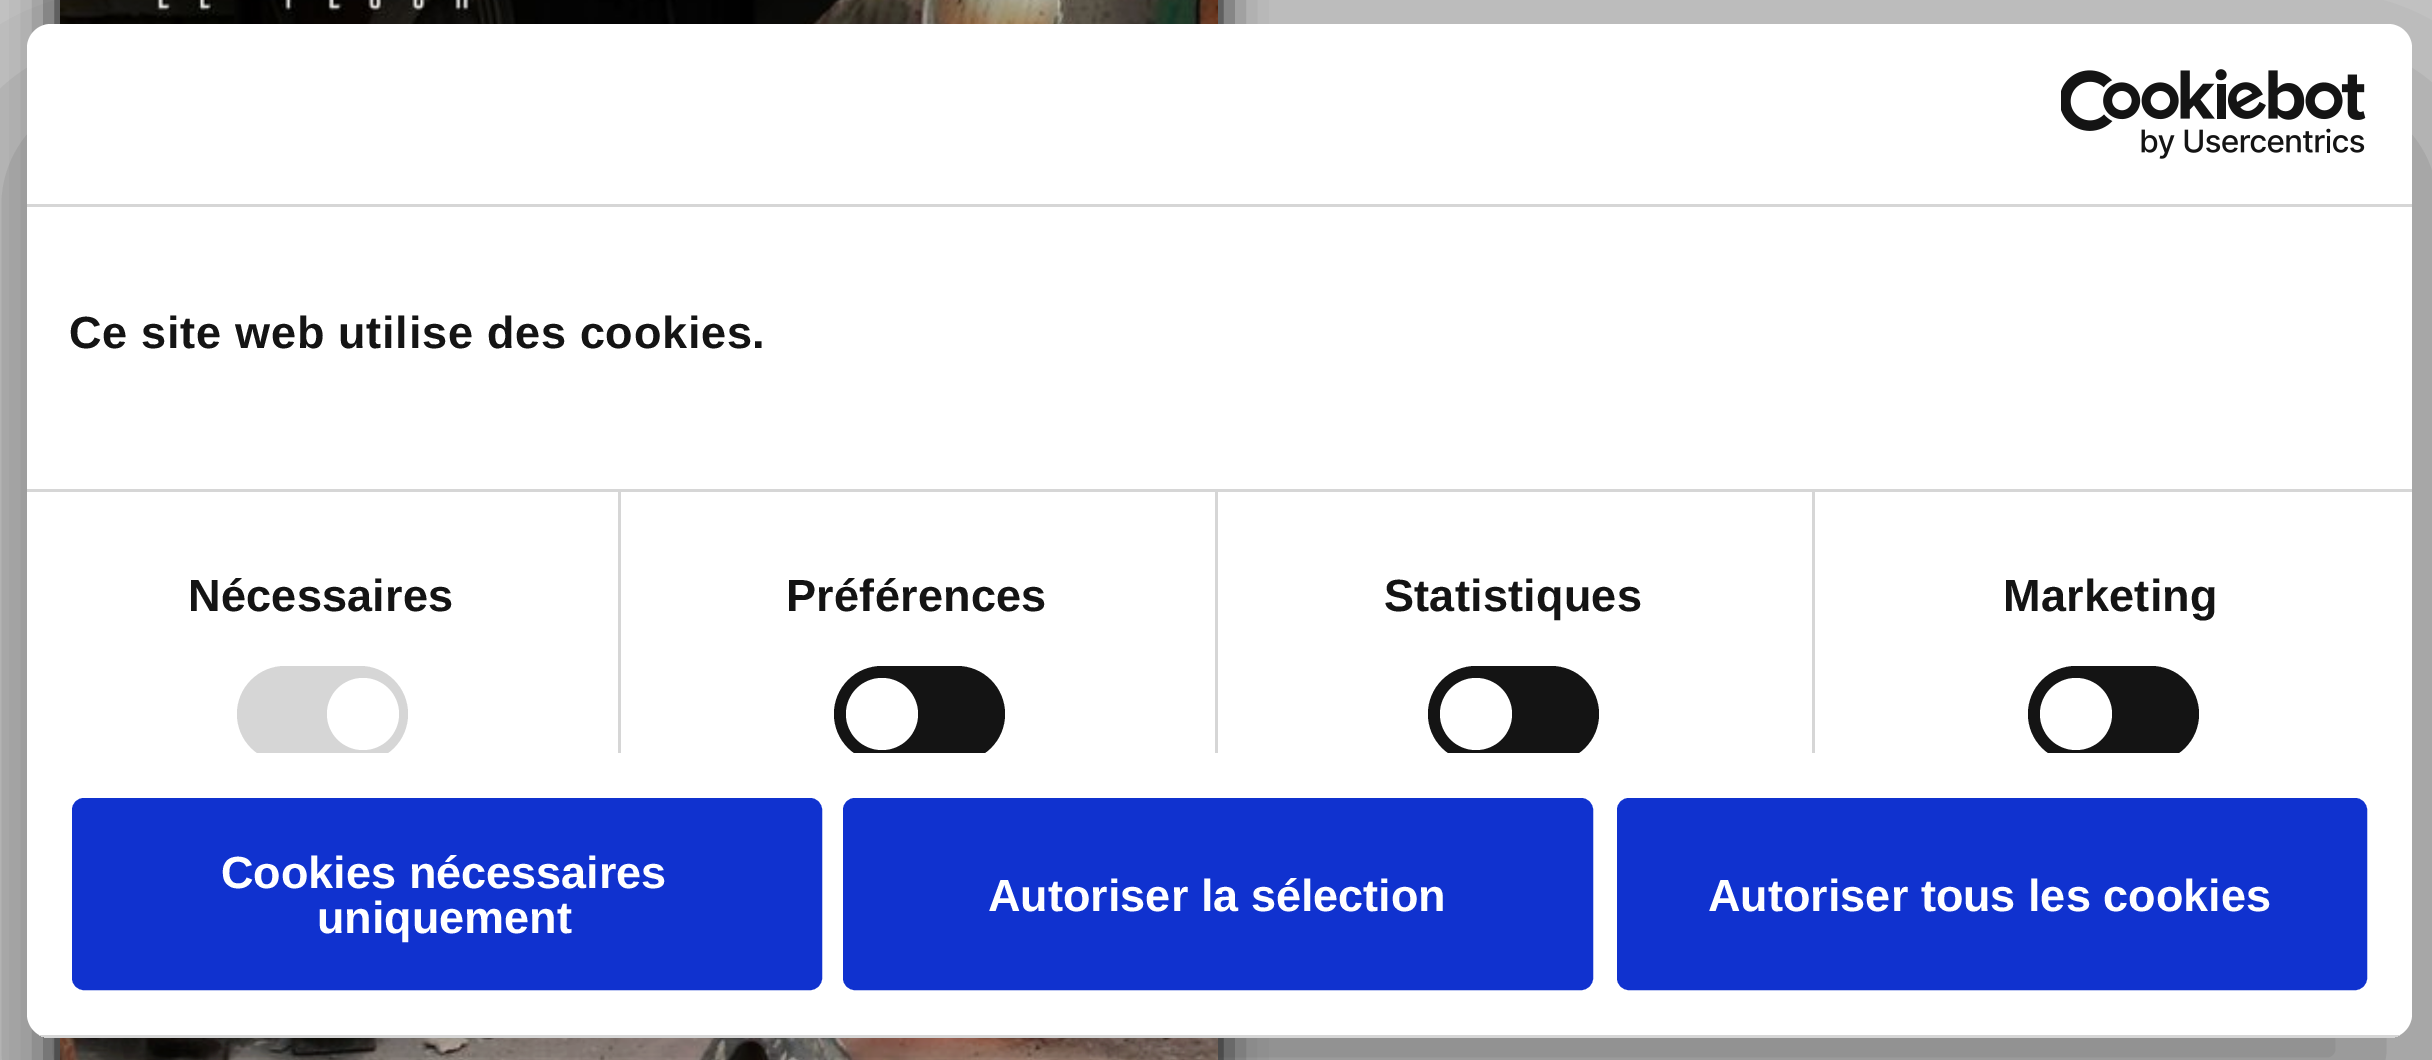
%!PS
<< /PageSize [2432 1060] /PageUsesTransparency true >> setpagedevice
/rgb { dup -16 bitshift 255 div exch dup -8 bitshift 255 and 255 div exch 255 and 255 div setrgbcolor } def
/font { [ exch dup neg 0 0 3 -1 roll 0 0 ] selectfont } def
/text { moveto show } def
/alpha { dup .setfillconstantalpha .setstrokeconstantalpha } def
/circle { newpath 0 360 arc closepath } def
/roundrect { 5 dict begin { /r /h /w /y /x } { exch def } forall
  x r add y moveto x w add y 2 copy h add r arct x w add y h add x 1 index r arct
  x y h add x y r arct x y 2 copy exch w add exch r arct closepath end } def
/shadow { 12 dict begin { /a /b /q /h /w /y /x } { exch def } forall gsave /was 0 def
  9 -2 -9 { dup b mul 4 div /e exch def 1 sub .425 mul 2.718 exch exp 1 add a .99 .min exch div /now exch def
    1 1 now sub 1 was sub div sub alpha /was now def
    w h .min e 2 mul add 0 gt { x e sub y e sub w e 2 mul add h e 2 mul add
      q e add b .6 mul add w h .min 2 div e add .min 0 .max roundrect fill } if } for grestore end } def
/picture { 5 dict begin { /h /w /y /x /name } { exch def } forall
  gsave x y translate w h scale
  w h 8 [w 0 0 h 0 0] name (r) file false 3 colorimage grestore end } def
0 .pushpdf14devicefilter
0 1060 translate 1 -1 scale
4 setmiterlimit
/s1 { /LiberationSans-Bold 45 font 16#FFFFFF rgb } def
16#C5C5C5 rgb
0 0 2432 1060 rectfill
16#000000 rgb
60 -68 1158 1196 0 22.5 1 shadow
(pic1.raw) 60 0 1158 1060 picture
gsave
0 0 moveto 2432 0 lineto 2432 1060 lineto 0 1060 lineto closepath 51 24 moveto 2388 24 lineto 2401.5 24 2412 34.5 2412 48 curveto 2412 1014 lineto 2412 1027.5 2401.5 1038 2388 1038 curveto 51 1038 lineto 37.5 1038 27 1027.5 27 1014 curveto 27 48 lineto 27 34.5 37.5 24 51 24 curveto closepath eoclip newpath
27 120 2385 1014 24 102 0.3 shadow
grestore
16#FFFFFF rgb
27 24 2385 1014 24 roundrect fill
16#D6D6D6 rgb
27 204 2385 3 rectfill
(pic2.raw) 2061 69 305 90 picture
27 489 2385 3 rectfill
/LiberationSans-Bold 45 font
16#141414 rgb
69 348 moveto 0.75 0 (Ce site web utilise des cookies.) ashow
16#D6D6D6 rgb
618 492 3 261 rectfill
16#141414 rgb
188 611 moveto 0.25 0 (Nécessaires) ashow
gsave
27 207 2385 546 rectclip
16#D6D6D6 rgb
237 666 171 96 48 roundrect fill
grestore
16#FFFFFF rgb
363 714 36 circle fill
16#D6D6D6 rgb
1215 492 3 261 rectfill
16#141414 rgb
786 611 moveto 0.25 0 (Préférences) ashow
gsave
27 207 2385 546 rectclip
834 666 171 96 48 roundrect fill
grestore
16#FFFFFF rgb
882 714 36 circle fill
16#D6D6D6 rgb
1812 492 3 261 rectfill
16#141414 rgb
1384 611 moveto 0.25 0 (Statistiques) ashow
gsave
27 207 2385 546 rectclip
1428 666 171 96 48 roundrect fill
grestore
16#FFFFFF rgb
1476 714 36 circle fill
16#141414 rgb
2003 611 moveto 0.25 0 (Marketing) ashow
gsave
27 207 2385 546 rectclip
2028 666 171 96 48 roundrect fill
grestore
16#FFFFFF rgb
2076 714 36 circle fill
gsave
27 24 2385 1014 24 roundrect clip newpath
16#D6D6D6 rgb
39 1035 2361 3 rectfill
grestore
16#1032CF rgb
75 801 744 186 9 roundrect gsave fill grestore
6 setlinewidth
stroke
s1
(Cookies nécessaires) 221 888 text
(uniquement) 317 933 text
16#1032CF rgb
846 801 744 186 9 roundrect gsave fill grestore
stroke
s1
(Autoriser la sélection) 988 911 text
16#1032CF rgb
1620 801 744 186 9 roundrect gsave fill grestore
stroke
s1
(Autoriser tous les cookies) 1708 911 text
.poppdf14devicefilter showpage
